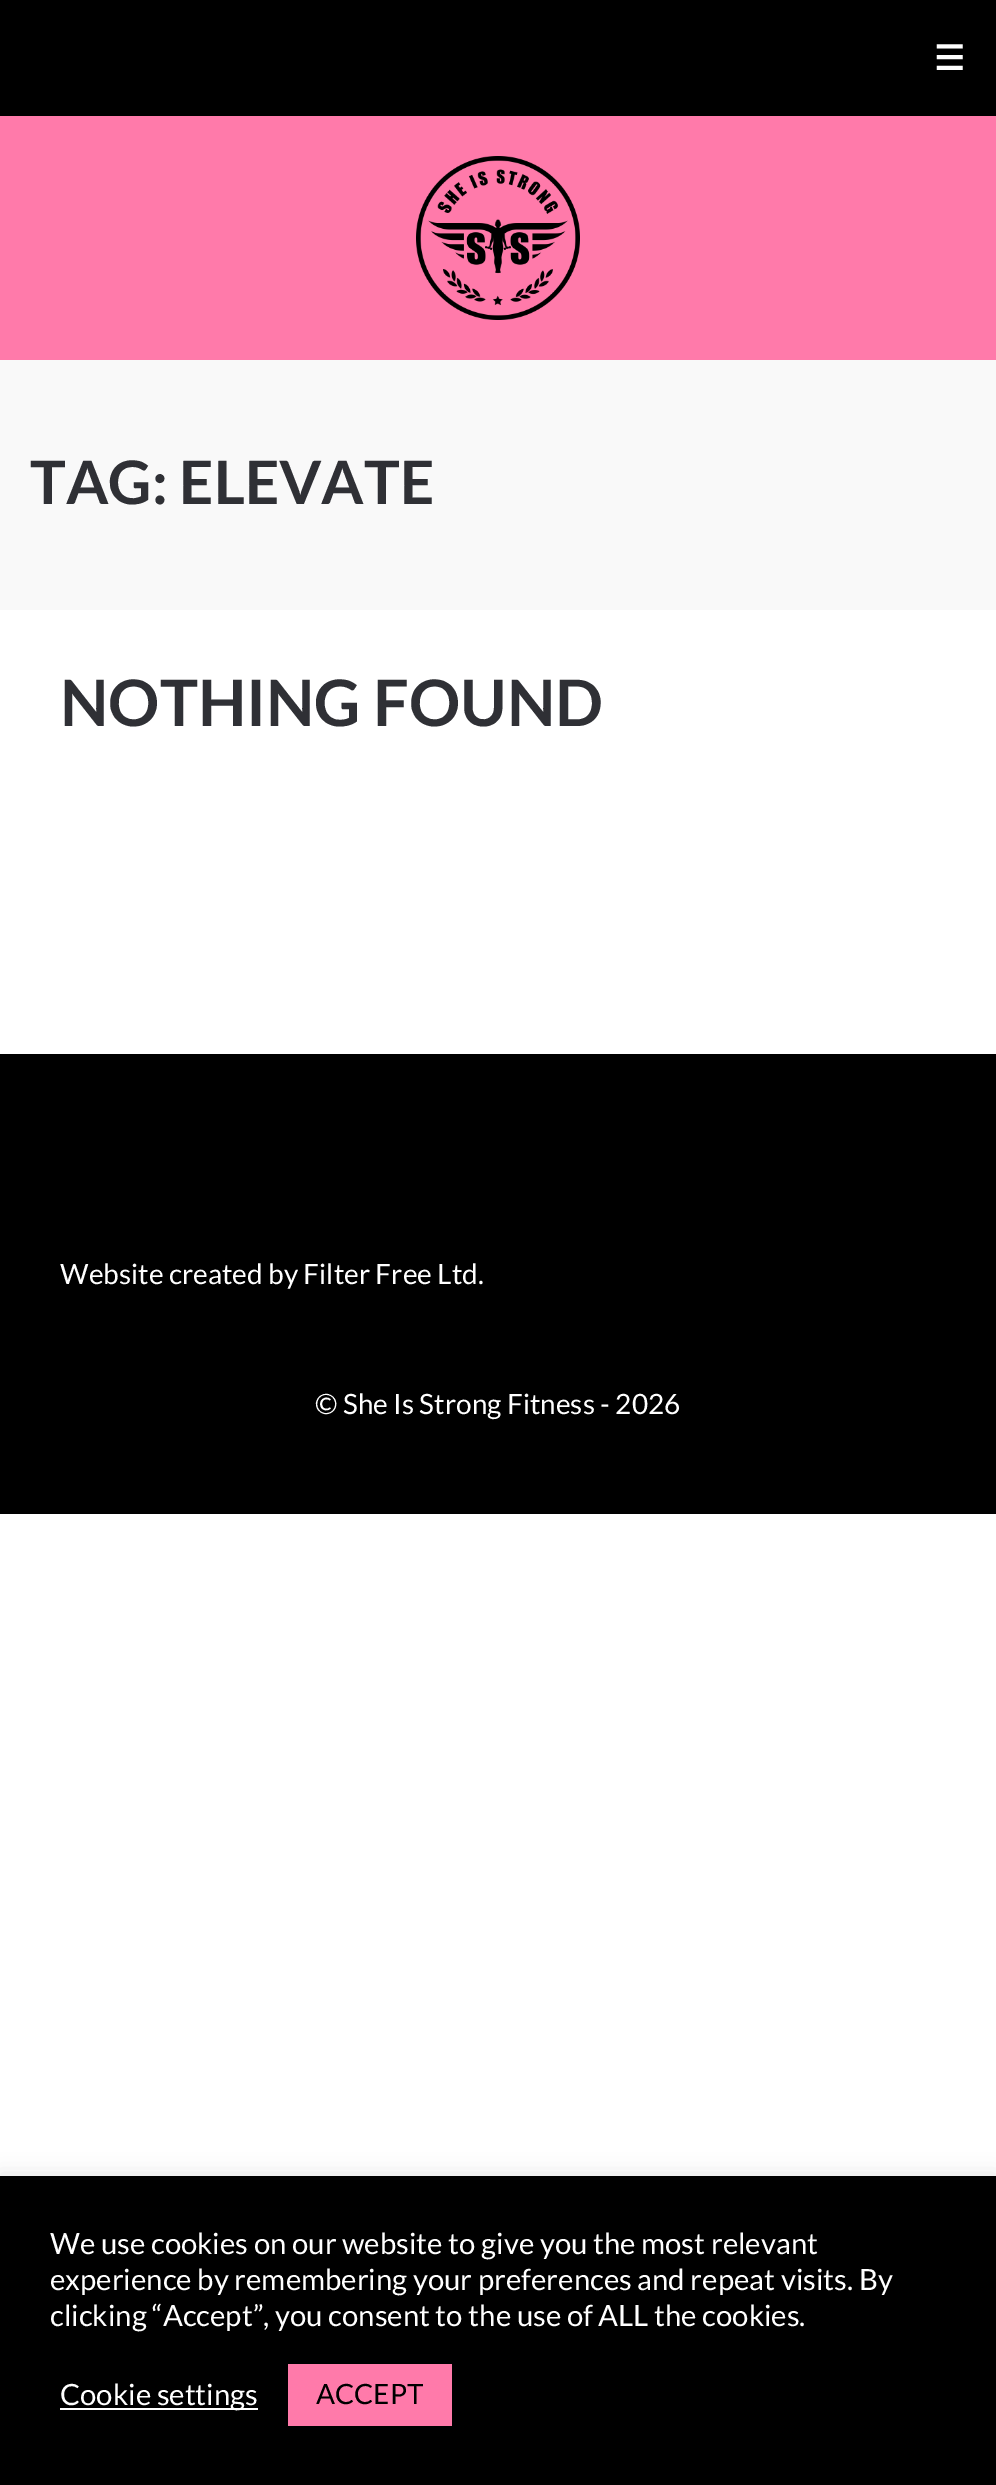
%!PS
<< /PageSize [996 2485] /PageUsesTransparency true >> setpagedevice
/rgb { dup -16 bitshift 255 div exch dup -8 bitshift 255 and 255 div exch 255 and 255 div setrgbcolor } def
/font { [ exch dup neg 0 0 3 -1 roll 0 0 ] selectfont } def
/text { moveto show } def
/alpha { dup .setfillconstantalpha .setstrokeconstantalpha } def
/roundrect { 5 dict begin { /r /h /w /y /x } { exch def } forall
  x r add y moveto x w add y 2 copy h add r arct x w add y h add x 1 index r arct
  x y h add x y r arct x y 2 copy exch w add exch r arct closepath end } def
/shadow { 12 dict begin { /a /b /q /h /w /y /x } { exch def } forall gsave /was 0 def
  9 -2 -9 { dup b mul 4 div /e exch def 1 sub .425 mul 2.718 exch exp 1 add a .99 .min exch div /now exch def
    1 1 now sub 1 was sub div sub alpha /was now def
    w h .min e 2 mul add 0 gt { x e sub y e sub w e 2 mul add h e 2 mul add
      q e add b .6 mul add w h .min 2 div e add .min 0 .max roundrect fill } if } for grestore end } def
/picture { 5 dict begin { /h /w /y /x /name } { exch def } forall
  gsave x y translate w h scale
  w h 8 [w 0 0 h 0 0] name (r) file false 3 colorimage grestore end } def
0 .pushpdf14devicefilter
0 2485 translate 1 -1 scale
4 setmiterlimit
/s1 { /DejaVuSans-Bold 34 font 16#FFFFFF rgb } def
/s2 { /Lato-Bold 60 font 16#2F3035 rgb } def
/s3 { /Lato-Bold 64 font 16#2F3035 rgb } def
/s4 { /Lato-Regular 28 font 16#FFFFFF rgb } def
/s5 { /Lato-Regular 29.3 font 16#FFFFFF rgb } def
/s6 { /Lato-Regular 28 font 16#000000 rgb } def
16#FFFFFF rgb
0 0 996 2485 rectfill
16#000000 rgb
0 0 996 116 rectfill
s1
(☰) 934 70 text
16#FF7AAA rgb
0 116 996 244 rectfill
(pic1.raw) 416 156 164 164 picture
16#F9F9F9 rgb
0 360 996 250 rectfill
s2
(TAG: ELEVATE) 30 504 text
s3
(NOTHING FOUND) 60 726 text
16#000000 rgb
0 1054 996 460 rectfill
s4
(Website created by Filter Free Ltd.) 60 1284 text
(© She Is Strong Fitness - 2026) 315 1414 text
16#ACABAB rgb
0 2174 996 310 0 10 0.3 shadow
16#000000 rgb
0 2176 996 309 rectfill
s5
(We use cookies on our website to give you the most relevant) 50 2254 text
(experience by remembering your preferences and repeat visits. By) 50 2290 text
(clicking “Accept”, you consent to the use of ALL the cookies.) 50 2326 text
60 2408 198 2 rectfill
(Cookie settings) 60 2405 text
16#FF7AAA rgb
288 2364 164 62 rectfill
s6
(ACCEPT) 316 2404 text
.poppdf14devicefilter showpage
